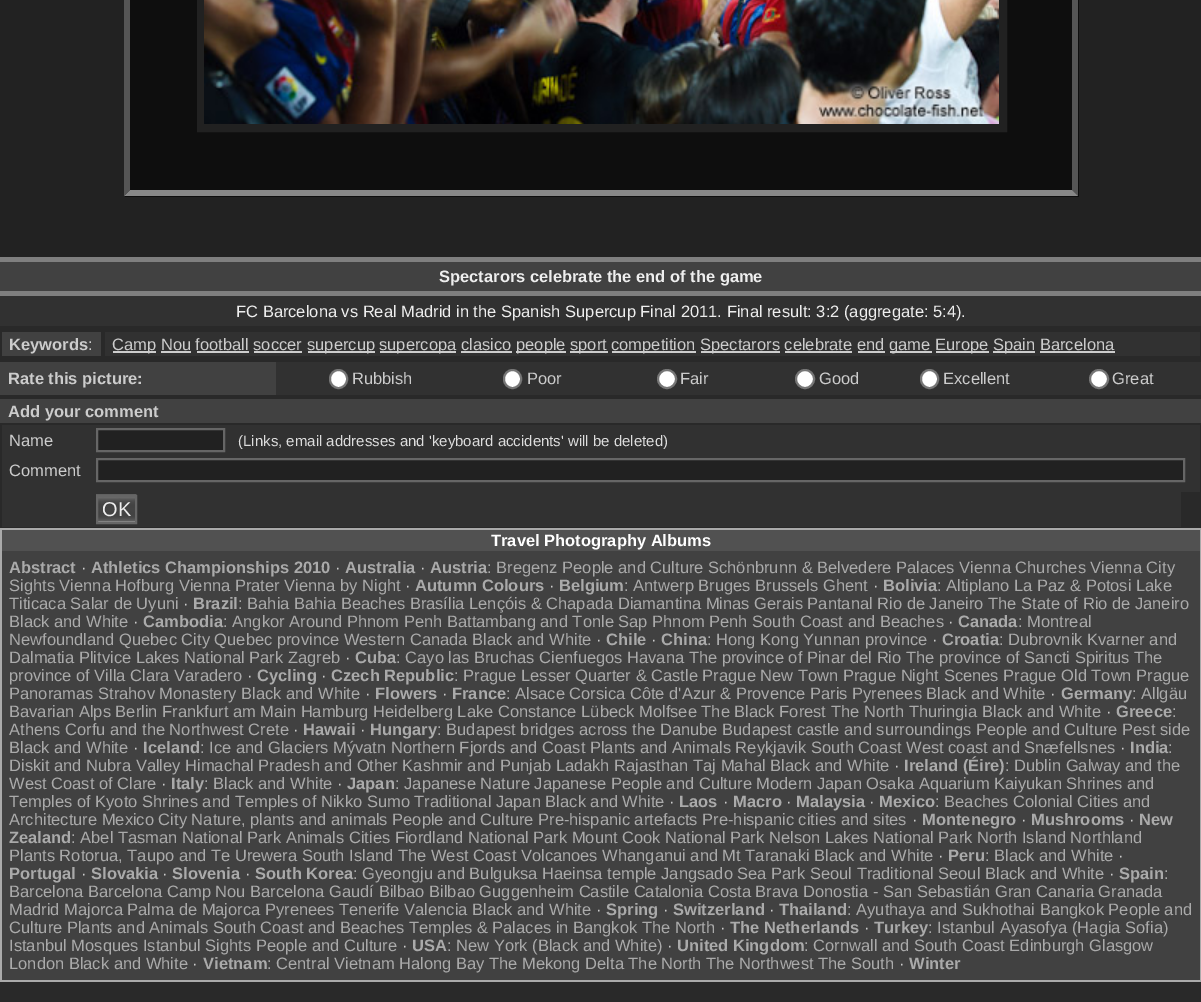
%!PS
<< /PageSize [1201 1002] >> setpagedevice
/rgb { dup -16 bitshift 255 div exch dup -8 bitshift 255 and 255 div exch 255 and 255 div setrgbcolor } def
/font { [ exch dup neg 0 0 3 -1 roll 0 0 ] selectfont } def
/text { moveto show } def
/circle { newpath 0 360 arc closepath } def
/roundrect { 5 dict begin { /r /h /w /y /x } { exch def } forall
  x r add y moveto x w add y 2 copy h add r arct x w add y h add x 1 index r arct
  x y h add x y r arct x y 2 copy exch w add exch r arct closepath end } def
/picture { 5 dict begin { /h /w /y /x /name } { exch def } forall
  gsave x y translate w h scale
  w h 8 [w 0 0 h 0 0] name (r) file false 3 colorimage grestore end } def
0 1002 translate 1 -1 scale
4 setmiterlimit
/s1 { /LiberationSans-Bold 16.5 font 16#EEEEEE rgb } def
/s2 { /LiberationSans-Regular 16.5 font 16#EEEEEE rgb } def
/s3 { /LiberationSans-Bold 16.5 font 16#CCCCCC rgb } def
/s4 { /LiberationSans-Regular 16.5 font 16#CCCCCC rgb } def
/s5 { /LiberationSans-Regular 15 font 16#DDDDDD rgb } def
/s6 { /LiberationSans-Regular 20 font 16#EEEEEE rgb } def
/s7 { /LiberationSans-Bold 16.5 font 16#FFFFFF rgb } def
/s8 { /LiberationSans-Bold 16.5 font 16#AAAAAA rgb } def
/s9 { /LiberationSans-Regular 16.5 font 16#AAAAAA rgb } def
16#292929 rgb
0 0 1201 1002 rectfill
16#222222 rgb
0 0 1201 257 rectfill
16#0E0E0E rgb
125 0 954 197 rectfill
16#555555 rgb
1078 -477 moveto 1078 196 lineto 1072 190 lineto 1072 -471 lineto closepath fill
16#888888 rgb
1078 196 moveto 124 196 lineto 130 190 lineto 1072 190 lineto closepath fill
16#555555 rgb
124 196 moveto 124 -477 lineto 130 -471 lineto 130 190 lineto closepath fill
16#212121 rgb
8 setlinewidth
201 -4 802 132 rectstroke
(pic1.raw) 204 0 795 124 picture
16#414141 rgb
0 262 1201 29 rectfill
16#7F7F7F rgb
0 257 1201 5 rectfill
s1
(Spectarors celebrate the end of the game) 439 282 text
16#313131 rgb
0 296 1201 30 rectfill
16#7F7F7F rgb
0 291 1201 5 rectfill
s2
(FC Barcelona vs Real Madrid in the Spanish Supercup Final 2011. Final result: 3:2 \(aggregate: 5:4\).) 236 317 text
16#414141 rgb
2 332 99 24 rectfill
s3
(Keywords) 9 350 text
s4
(:) 88 350 text
16#313131 rgb
105 332 1095 24 rectfill
16#CDCDCD rgb
113 351 43 2 rectfill
s4
(Camp Nou football soccer) 112 350 text
16#CDCDCD rgb
308 351 67 2 rectfill
s4
(supercup) 307 350 text
16#CDCDCD rgb
380 351 76 2 rectfill
s4
(supercopa clasico) 379 350 text
16#CDCDCD rgb
516 351 50 2 rectfill
s4
(people) 516 350 text
16#CDCDCD rgb
570 351 38 2 rectfill
s4
(sport) 570 350 text
16#CDCDCD rgb
612 351 84 2 rectfill
s4
(competition) 611 350 text
16#CDCDCD rgb
701 351 79 2 rectfill
s4
(Spectarors celebrate end) 700 350 text
16#CDCDCD rgb
890 351 42 2 rectfill
s4
(game) 889 350 text
16#CDCDCD rgb
936 351 53 2 rectfill
s4
(Europe) 935 350 text
16#CDCDCD rgb
993 351 42 2 rectfill
s4
(Spain Barcelona) 993 350 text
16#CDCDCD rgb
161 351 30 2 rectfill
197 351 52 2 rectfill
254 351 48 2 rectfill
461 351 51 2 rectfill
785 351 67 2 rectfill
858 351 27 2 rectfill
1040 351 75 2 rectfill
16#414141 rgb
0 362 276 33 rectfill
s3
(Rate this picture:) 8 384 text
16#313131 rgb
276 362 925 33 rectfill
16#FFFFFF rgb
330 370 17 18 8.5 roundrect gsave fill grestore
16#767676 rgb
2 setlinewidth
stroke
s4
(Rubbish) 352 384 text
16#FFFFFF rgb
504 370 17 18 8.5 roundrect gsave fill grestore
16#767676 rgb
stroke
s4
(Poor) 527 384 text
16#FFFFFF rgb
667 379 9 circle gsave fill grestore
16#767676 rgb
stroke
s4
(Fair) 680 384 text
16#FFFFFF rgb
805 379 9 circle gsave fill grestore
16#767676 rgb
stroke
s4
(Good) 819 384 text
16#FFFFFF rgb
921 370 17 18 8.5 roundrect gsave fill grestore
16#767676 rgb
stroke
s4
(Excellent) 943 384 text
16#FFFFFF rgb
1099 379 9 circle gsave fill grestore
16#767676 rgb
stroke
s4
(Great) 1112 384 text
16#414141 rgb
0 399 1201 24 rectfill
s3
(Add your comment) 8 417 text
16#313131 rgb
2 425 1198 30 rectfill
s4
(Name) 9 446 text
16#212121 rgb
97 429 moveto 224 429 lineto 224 451 lineto 97 451 lineto closepath gsave fill grestore
16#666666 rgb
stroke
s5
(\(Links, email addresses and 'keyboard accidents' will be deleted\)) 238 446 text
16#313131 rgb
2 455 1198 37 rectfill
s4
(Comment) 9 476 text
16#212121 rgb
97 459 moveto 1184 459 lineto 1184 481 lineto 97 481 lineto closepath gsave fill grestore
16#666666 rgb
stroke
16#313131 rgb
2 492 1179 35 rectfill
(pic2.raw) 96 494 41 28 picture
16#666666 rgb
97 496 39 27 rectstroke
s6
(OK) 102 516 text
16#AAAAAA rgb
0 528 1201 2 rectfill
1200 528 1 453 rectfill
0 980 1201 2 rectfill
0 528 2 453 rectfill
16#515151 rgb
2 530 1198 21 rectfill
s7
(Travel Photography Albums) 491 546 text
16#414141 rgb
2 551 1198 429 rectfill
s8
(Abstract) 9 573 text
s4
(·) 81 573 text
s8
(Athletics Championships 2010) 91 573 text
s4
(·) 335 573 text
s8
(Australia) 345 573 text
s4
(·) 420 573 text
s8
(Austria) 430 573 text
s9
(: Bregenz People and Culture Schönbrunn & Belvedere Palaces Vienna Churches Vienna City) 487 573 text
(Sights Vienna Hofburg Vienna Prater Vienna by Night) 9 591 text
s4
(·) 405 591 text
s8
(Autumn Colours) 415 591 text
s4
(·) 549 591 text
s8
(Belgium) 559 591 text
s9
(: Antwerp Bruges Brussels Ghent) 624 591 text
s4
(·) 873 591 text
s8
(Bolivia) 883 591 text
s9
(: Altiplano La Paz & Potosi Lake) 937 591 text
(Titicaca Salar de Uyuni) 9 609 text
s4
(·) 183 609 text
s8
(Brazil) 193 609 text
s9
(: Bahia Bahia Beaches Brasília Lençóis & Chapada Diamantina Minas Gerais Pantanal Rio de Janeiro The State of Rio de Janeiro) 238 609 text
(Black and White) 9 627 text
s4
(·) 133 627 text
s8
(Cambodia) 143 627 text
s9
(: Angkor Around Phnom Penh Battambang and Tonle Sap Phnom Penh South Coast and Beaches) 223 627 text
s4
(·) 948 627 text
s8
(Canada) 958 627 text
s9
(: Montreal) 1018 627 text
(Newfoundland Quebec City Quebec province Western Canada Black and White) 9 645 text
s4
(·) 596 645 text
s8
(Chile) 606 645 text
s4
(·) 651 645 text
s8
(China) 661 645 text
s9
(: Hong Kong Yunnan province) 707 645 text
s4
(·) 932 645 text
s8
(Croatia) 942 645 text
s9
(: Dubrovnik Kvarner and) 999 645 text
(Dalmatia Plitvice Lakes National Park Zagreb) 9 663 text
s4
(·) 345 663 text
s8
(Cuba) 355 663 text
s9
(: Cayo las Bruchas Cienfuegos Havana The province of Pinar del Rio The province of Sancti Spiritus The) 396 663 text
(province of Villa Clara Varadero) 9 681 text
s4
(·) 247 681 text
s8
(Cycling) 257 681 text
s4
(·) 321 681 text
s8
(Czech Republic) 331 681 text
s9
(: Prague Lesser Quarter & Castle Prague New Town Prague Night Scenes Prague Old Town Prague) 454 681 text
(Panoramas Strahov Monastery Black and White) 9 699 text
s4
(·) 365 699 text
s8
(Flowers) 375 699 text
s4
(·) 442 699 text
s8
(France) 452 699 text
s9
(: Alsace Corsica Côte d'Azur & Provence Paris Pyrenees Black and White) 506 699 text
s4
(·) 1050 699 text
s8
(Germany) 1061 699 text
s9
(: Allgäu) 1132 699 text
(Bavarian Alps Berlin Frankfurt am Main Hamburg Heidelberg Lake Constance Lübeck Molfsee The Black Forest The North Thuringia Black and White) 9 717 text
s4
(·) 1106 717 text
s8
(Greece) 1116 717 text
s9
(:) 1172 717 text
(Athens Corfu and the Northwest Crete) 9 735 text
s4
(·) 293 735 text
s8
(Hawaii) 303 735 text
s4
(·) 360 735 text
s8
(Hungary) 370 735 text
s9
(: Budapest bridges across the Danube Budapest castle and surroundings People and Culture Pest side) 437 735 text
(Black and White) 9 753 text
s4
(·) 133 753 text
s8
(Iceland) 143 753 text
s9
(: Ice and Glaciers Mývatn Northern Fjords and Coast Plants and Animals Reykjavik South Coast West coast and Snæfellsnes) 200 753 text
s4
(·) 1120 753 text
s8
(India) 1130 753 text
s9
(:) 1168 753 text
(Diskit and Nubra Valley Himachal Pradesh and Other Kashmir and Punjab Ladakh Rajasthan Taj Mahal Black and White) 9 771 text
s4
(·) 894 771 text
s8
(Ireland \(Éire\)) 904 771 text
s9
(: Dublin Galway and the) 1005 771 text
(West Coast of Clare) 9 789 text
s4
(·) 161 789 text
s8
(Italy) 171 789 text
s9
(: Black and White) 204 789 text
s4
(·) 337 789 text
s8
(Japan) 347 789 text
s9
(: Japanese Nature Japanese People and Culture Modern Japan Osaka Aquarium Kaiyukan Shrines and) 395 789 text
(Temples of Kyoto Shrines and Temples of Nikko Sumo Traditional Japan Black and White) 9 807 text
s4
(·) 669 807 text
s8
(Laos) 679 807 text
s4
(·) 723 807 text
s8
(Macro) 733 807 text
s4
(·) 786 807 text
s8
(Malaysia) 796 807 text
s4
(·) 869 807 text
s8
(Mexico) 879 807 text
s9
(: Beaches Colonial Cities and) 935 807 text
(Architecture Mexico City Nature, plants and animals People and Culture Pre-hispanic artefacts Pre-hispanic cities and sites) 9 825 text
s4
(·) 912 825 text
s8
(Montenegro) 922 825 text
s4
(·) 1021 825 text
s8
(Mushrooms) 1031 825 text
s4
(·) 1129 825 text
s8
(New) 1139 825 text
(Zealand) 9 843 text
s9
(: Abel Tasman National Park Animals Cities Fiordland National Park Mount Cook National Park Nelson Lakes National Park North Island Northland) 71 843 text
(Plants Rotorua, Taupo and Te Urewera South Island The West Coast Volcanoes Whanganui and Mt Taranaki Black and White) 9 861 text
s4
(·) 938 861 text
s8
(Peru) 948 861 text
s9
(: Black and White) 985 861 text
s4
(·) 1118 861 text
s8
(Portugal) 9 879 text
s4
(·) 81 879 text
s8
(Slovakia) 91 879 text
s4
(·) 162 879 text
s8
(Slovenia) 172 879 text
s4
(·) 245 879 text
s8
(South Korea) 255 879 text
s9
(: Gyeongju and Bulguksa Haeinsa temple Jangsado Sea Park Seoul Traditional Seoul Black and White) 353 879 text
s4
(·) 1109 879 text
s8
(Spain) 1119 879 text
s9
(:) 1164 879 text
(Barcelona Barcelona Camp Nou Barcelona Gaudí Bilbao Bilbao Guggenheim Castile Catalonia Costa Brava Donostia - San Sebastián Gran Canaria Granada) 9 897 text
(Madrid Majorca Palma de Majorca Pyrenees Tenerife Valencia Black and White) 9 915 text
s4
(·) 596 915 text
s8
(Spring) 606 915 text
s4
(·) 663 915 text
s8
(Switzerland) 673 915 text
s4
(·) 769 915 text
s8
(Thailand) 779 915 text
s9
(: Ayuthaya and Sukhothai Bangkok People and) 847 915 text
(Culture Plants and Animals South Coast and Beaches Temples & Palaces in Bangkok The North) 9 933 text
s4
(·) 720 933 text
s8
(The Netherlands) 730 933 text
s4
(·) 864 933 text
s8
(Turkey) 874 933 text
s9
(: Istanbul Ayasofya \(Hagia Sofia\)) 928 933 text
(Istanbul Mosques Istanbul Sights People and Culture) 9 951 text
s4
(·) 402 951 text
s8
(USA) 412 951 text
s9
(: New York \(Black and White\)) 447 951 text
s4
(·) 667 951 text
s8
(United Kingdom) 677 951 text
s9
(: Cornwall and South Coast Edinburgh Glasgow) 804 951 text
(London Black and White) 9 969 text
s4
(·) 192 969 text
s8
(Vietnam) 203 969 text
s9
(: Central Vietnam Halong Bay The Mekong Delta The North The Northwest The South) 267 969 text
s4
(·) 899 969 text
s8
(Winter) 909 969 text
showpage
